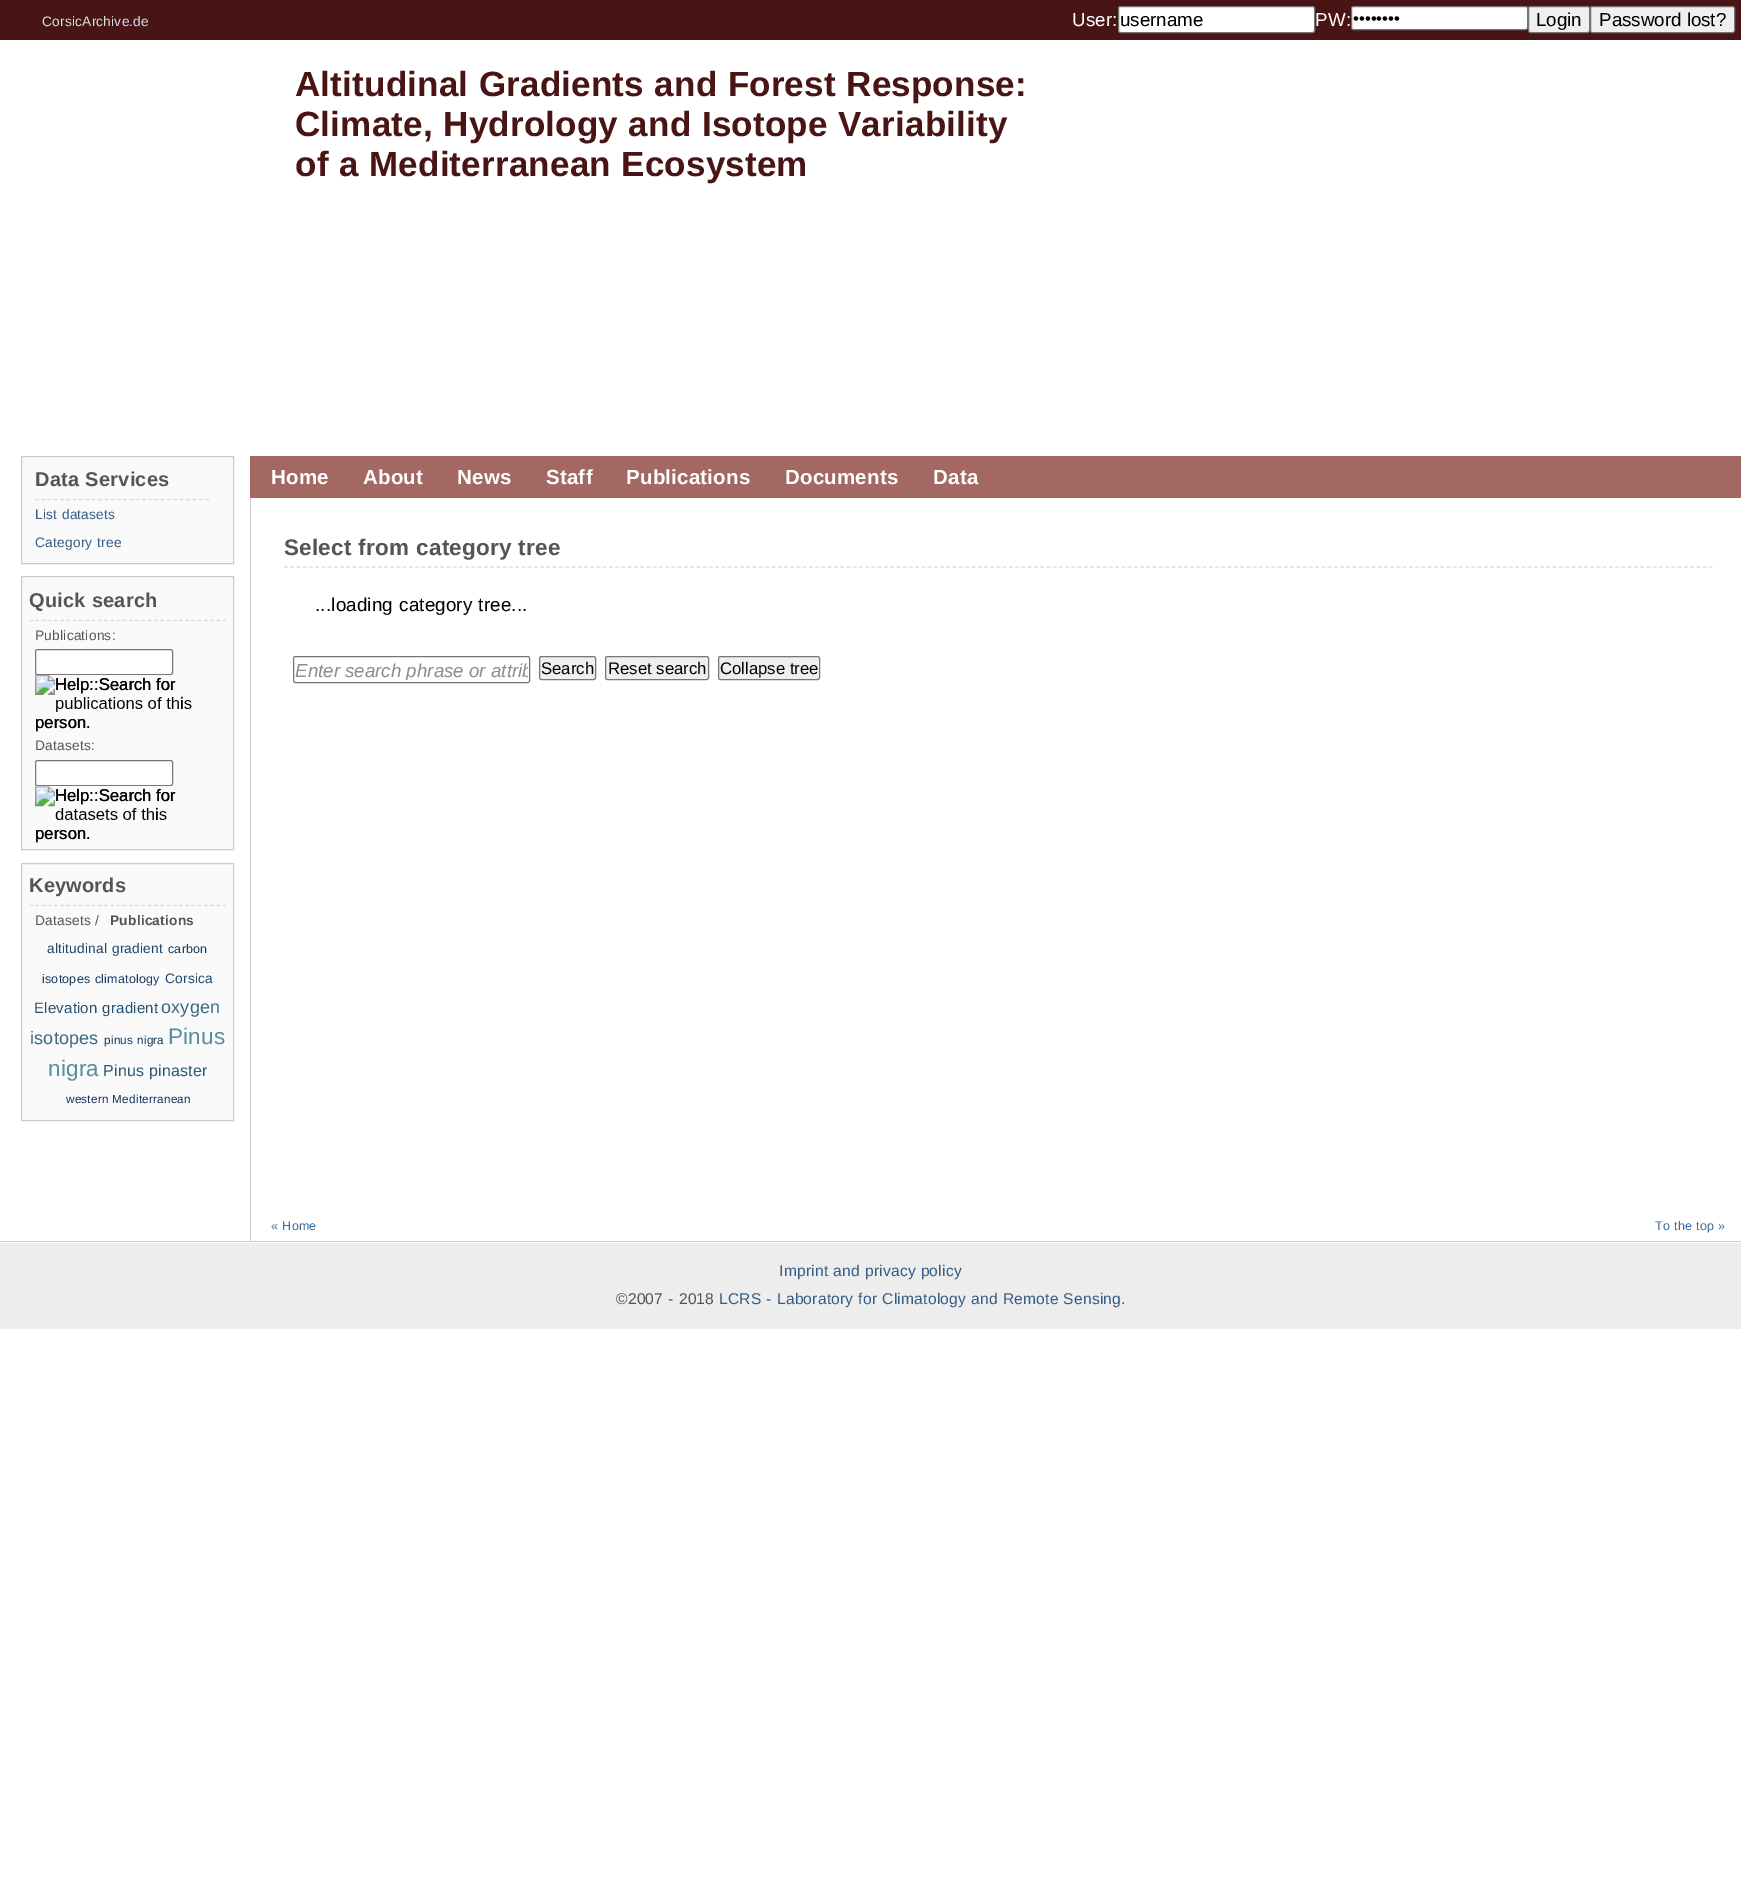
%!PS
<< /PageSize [1741 1883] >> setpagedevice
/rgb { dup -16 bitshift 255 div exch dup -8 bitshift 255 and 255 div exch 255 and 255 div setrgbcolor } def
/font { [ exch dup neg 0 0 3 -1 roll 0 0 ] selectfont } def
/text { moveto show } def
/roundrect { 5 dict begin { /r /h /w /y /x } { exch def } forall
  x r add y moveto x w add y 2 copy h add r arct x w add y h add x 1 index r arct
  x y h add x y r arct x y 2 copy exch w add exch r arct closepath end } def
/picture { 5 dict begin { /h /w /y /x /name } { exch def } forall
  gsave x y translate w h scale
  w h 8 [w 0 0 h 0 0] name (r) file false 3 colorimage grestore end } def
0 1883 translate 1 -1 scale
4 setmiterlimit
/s1 { /LiberationSans-Regular 18.75 font 16#000000 rgb } def
/s2 { /LiberationSans-Regular 16.75 font 16#000000 rgb } def
/s3 { /LiberationSans-Italic 18.75 font 16#8D8D8D rgb } def
16#FFFFFF rgb
0 0 1741 1883 rectfill
16#491514 rgb
0 0 1741 40 rectfill
/LiberationSans-Regular 13.75 font
16#D3E2EA rgb
42 26 moveto 0.2 0 (CorsicArchive.de) ashow
/LiberationSans-Regular 18.75 font
16#FFFFFF rgb
1072 26 moveto 0.2 0 (User:) ashow
1118.5 6.5 196 26 2 roundrect gsave fill grestore
16#767676 rgb
stroke
s1
(username) 1120 26 text
16#FFFFFF rgb
1315 26 moveto 0.2 0 (PW:) ashow
1351.5 6.5 176 23 2 roundrect gsave fill grestore
16#767676 rgb
stroke
s2
(••••••••) 1353 24 text
16#EFEFEF rgb
1528.5 6.5 61 26 2 roundrect gsave fill grestore
16#767676 rgb
stroke
s1
(Login) 1536 26 text
16#EFEFEF rgb
1590.5 6.5 144 26 2 roundrect gsave fill grestore
16#767676 rgb
stroke
s1
(Password lost?) 1599 26 text
/LiberationSans-Bold 35 font
16#491514 rgb
295 96 moveto 0.5 0 32 0.2 0 (Altitudinal Gradients and Forest Response:) awidthshow
295 136 moveto 0.5 0 32 0.2 0 (Climate, Hydrology and Isotope Variability) awidthshow
295 176 moveto 0.5 0 32 0.2 0 (of a Mediterranean Ecosystem) awidthshow
16#CCCCCC rgb
0 1241 1741 1 rectfill
250 498 1 743 rectfill
16#FAFAFA rgb
21.5 456.5 moveto 233.5 456.5 lineto 233.5 563.5 lineto 21.5 563.5 lineto closepath gsave fill grestore
16#CCCCCC rgb
stroke
16#DDDDDD rgb
1.2 setlinewidth
[3.75 2.55] 0 setdash
35 499.5 moveto 209 499.5 lineto stroke
/LiberationSans-Bold 20 font
16#555555 rgb
35 486 moveto 0.5 0 32 0.2 0 (Data Services) awidthshow
/LiberationSans-Regular 13.75 font
16#365D86 rgb
35 519 moveto 0.5 0 32 0.2 0 (List datasets) awidthshow
35 547 moveto 0.5 0 32 0.2 0 (Category tree) awidthshow
16#FAFAFA rgb
21.5 576.5 moveto 233.5 576.5 lineto 233.5 849.5 lineto 21.5 849.5 lineto closepath gsave fill grestore
16#CCCCCC rgb
1 setlinewidth
[] 0 setdash
stroke
16#DDDDDD rgb
1.2 setlinewidth
[3.75 2.5] 0 setdash
29 620.5 moveto 226 620.5 lineto stroke
/LiberationSans-Bold 20 font
16#555555 rgb
29 607 moveto 0.5 0 32 0.2 0 (Quick search) awidthshow
/LiberationSans-Regular 13.75 font
35 640 moveto 0.2 0 (Publications:) ashow
16#FFFFFF rgb
35.5 649.5 137 25 2 roundrect gsave fill grestore
16#767676 rgb
1 setlinewidth
[] 0 setdash
stroke
(pic1.raw) 35 675 157 56 picture
s2
(Help::Search for) 55 690 text
(i) 180 709 text
(person.) 35 728 text
/LiberationSans-Regular 13.75 font
16#555555 rgb
35 750 moveto 0.2 0 (Datasets:) ashow
16#FFFFFF rgb
35.5 760.5 137 25 2 roundrect gsave fill grestore
16#767676 rgb
stroke
(pic2.raw) 35 786 140 56 picture
s2
(Help::Search for) 55 801 text
(i) 155 820 text
(person.) 35 839 text
16#FAFAFA rgb
21.5 863.5 moveto 233.5 863.5 lineto 233.5 1120.5 lineto 21.5 1120.5 lineto closepath gsave fill grestore
16#CCCCCC rgb
stroke
16#DDDDDD rgb
1.2 setlinewidth
[3.75 2.5] 0 setdash
29 905.5 moveto 226 905.5 lineto stroke
/LiberationSans-Bold 20 font
16#555555 rgb
29 892 moveto 0.2 0 (Keywords) ashow
/LiberationSans-Regular 13.75 font
35 925 moveto 0.2 0 (Datasets) ashow
95 925 moveto 0.2 0 (/) ashow
/LiberationSans-Bold 13.75 font
110 925 moveto 0.2 0 (Publications) ashow
/LiberationSans-Regular 13.75 font
16#1F4769 rgb
47 953 moveto 0.5 0 32 0.2 0 (altitudinal gradient) awidthshow
/LiberationSans-Regular 12.5 font
16#173E62 rgb
168 953 moveto 0.2 0 (carbon) ashow
42 983 moveto 0.2 0 (isotopes) ashow
95 983 moveto 0.2 0 (climatology) ashow
/LiberationSans-Regular 13.75 font
16#1F4769 rgb
165 983 moveto 0.2 0 (Corsica) ashow
/LiberationSans-Regular 15 font
16#26506F rgb
34 1013 moveto 0.5 0 32 0.2 0 (Elevation gradient) awidthshow
/LiberationSans-Regular 18 font
16#3C6A83 rgb
161 1013 moveto 0.2 0 (oxygen) ashow
30 1044 moveto 0.2 0 (isotopes) ashow
/LiberationSans-Regular 11.75 font
16#11355C rgb
104 1044 moveto 0.5 0 32 0.2 0 (pinus nigra) awidthshow
/LiberationSans-Regular 22.5 font
16#598E9E rgb
168 1044 moveto 0.2 0 (Pinus) ashow
48 1076 moveto 0.2 0 (nigra) ashow
/LiberationSans-Regular 16 font
16#2D5875 rgb
103 1076 moveto 0.5 0 32 0.2 0 (Pinus pinaster) awidthshow
/LiberationSans-Regular 11.75 font
16#11355C rgb
66 1103 moveto 0.5 0 32 0.2 0 (western Mediterranean) awidthshow
16#A36862 rgb
250 456 1491 42 rectfill
/LiberationSans-Bold 20.5 font
16#FFFFFF rgb
271 484 moveto 0.2 0 (Home) ashow
363 484 moveto 0.2 0 (About) ashow
457 484 moveto 0.2 0 (News) ashow
546 484 moveto 0.2 0 (Staff) ashow
626 484 moveto 0.2 0 (Publications) ashow
785 484 moveto 0.2 0 (Documents) ashow
933 484 moveto 0.2 0 (Data) ashow
16#DDDDDD rgb
284 567 moveto 1712.5 567 lineto stroke
/LiberationSans-Bold 22.5 font
16#555555 rgb
284 555 moveto 0.5 0 32 0.2 0 (Select from category tree) awidthshow
/LiberationSans-Regular 18.75 font
16#000000 rgb
315 611 moveto 0.5 0 32 0.2 0 (...loading category tree...) awidthshow
16#767676 rgb
1 setlinewidth
[] 0 setdash
293.5 656.5 236 26 2 roundrect stroke
gsave
295 659 233 21 rectclip
s3
(Enter search phrase or attrib) 295 677 text
grestore
16#EFEFEF rgb
539.5 656.5 56 23 2 roundrect gsave fill grestore
16#767676 rgb
stroke
s2
(Search) 541 674 text
16#EFEFEF rgb
605.5 656.5 103 23 2 roundrect gsave fill grestore
16#767676 rgb
stroke
s2
(Reset search) 608 674 text
16#EFEFEF rgb
718.5 656.5 101 23 2 roundrect gsave fill grestore
16#767676 rgb
stroke
s2
(Collapse tree) 720 674 text
/LiberationSans-Regular 12.5 font
16#3C6F9D rgb
271 1230 moveto 0.5 0 32 0.2 0 (« Home) awidthshow
1655 1230 moveto 0.5 0 32 0.2 0 (To the top ») awidthshow
16#EDEDED rgb
0 1243 1741 86 rectfill
/LiberationSans-Regular 15.6 font
16#365D86 rgb
779 1276 moveto 0.5 0 32 0.2 0 (Imprint and privacy policy) awidthshow
16#555555 rgb
616 1304 moveto 0.5 0 32 0.2 0 (©2007 - 2018) awidthshow
16#365D86 rgb
719 1304 moveto 0.5 0 32 0.2 0 (LCRS - Laboratory for Climatology and Remote Sensing) awidthshow
16#555555 rgb
1121 1304 moveto 0.2 0 (.) ashow
showpage
